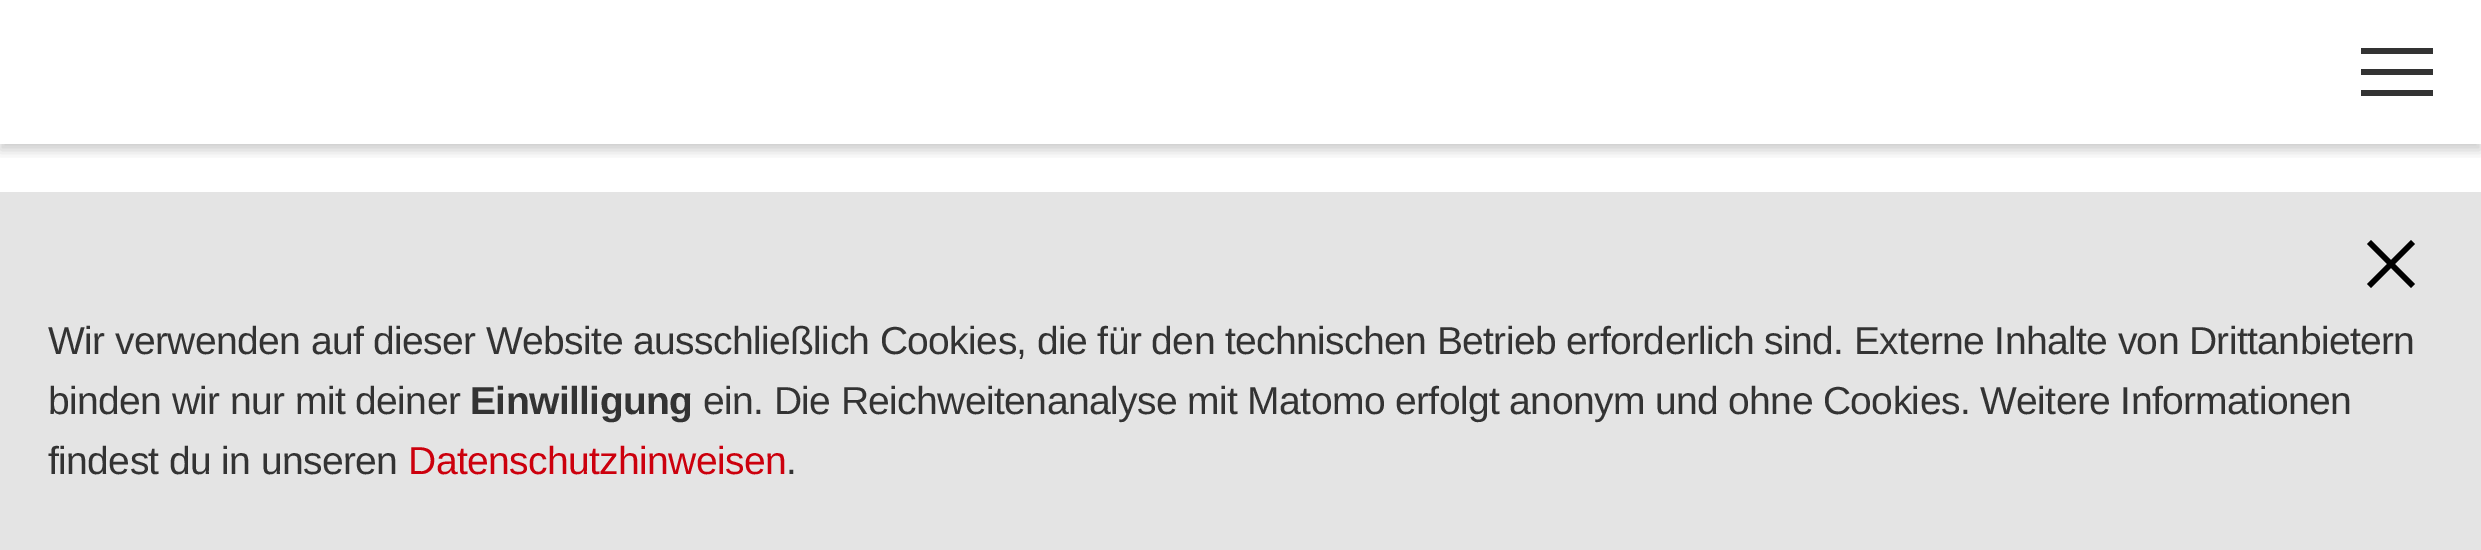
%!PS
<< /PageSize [2481 550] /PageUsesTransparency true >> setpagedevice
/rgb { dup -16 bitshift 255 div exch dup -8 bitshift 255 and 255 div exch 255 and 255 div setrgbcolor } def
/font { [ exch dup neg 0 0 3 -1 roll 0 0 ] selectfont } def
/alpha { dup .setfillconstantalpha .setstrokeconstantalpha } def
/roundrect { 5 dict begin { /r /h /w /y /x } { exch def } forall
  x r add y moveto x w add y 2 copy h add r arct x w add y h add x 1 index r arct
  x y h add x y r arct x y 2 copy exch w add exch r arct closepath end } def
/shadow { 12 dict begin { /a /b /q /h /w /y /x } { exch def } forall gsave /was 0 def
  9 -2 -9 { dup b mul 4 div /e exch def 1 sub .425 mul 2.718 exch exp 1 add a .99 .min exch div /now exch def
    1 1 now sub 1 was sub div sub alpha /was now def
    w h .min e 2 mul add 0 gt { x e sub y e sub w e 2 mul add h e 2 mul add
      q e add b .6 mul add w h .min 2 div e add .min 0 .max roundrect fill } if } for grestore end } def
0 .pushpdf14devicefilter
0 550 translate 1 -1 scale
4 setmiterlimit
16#FFFFFF rgb
0 0 2481 550 rectfill
gsave
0 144 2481 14 rectclip
16#000000 rgb
0 6 2481 144 0 6 0.2 shadow
grestore
16#333333 rgb
2361 48 72 6 rectfill
2361 69 72 6 rectfill
2361 90 72 6 rectfill
16#E4E4E4 rgb
0 192 2481 358 rectfill
16#000000 rgb
2411 240 moveto 2415 244 lineto 2395 264 lineto 2415 284 lineto 2411 288 lineto 2391 268 lineto 2371 288 lineto 2367 284 lineto 2387 264 lineto 2367 244 lineto 2371 240 lineto 2391 260 lineto closepath fill
/LiberationSans-Regular 39 font
16#333333 rgb
48 354 moveto -0.6 0 (Wir verwenden auf dieser Website ausschließlich Cookies, die für den technischen Betrieb erforderlich sind. Externe Inhalte von Drittanbietern) ashow
48 414 moveto -0.6 0 (binden wir nur mit deiner) ashow
/LiberationSans-Bold 39 font
470 414 moveto -0.6 0 (Einwilligung) ashow
/LiberationSans-Regular 39 font
703 414 moveto -0.6 0 (ein. Die Reichweitenanalyse mit Matomo erfolgt anonym und ohne Cookies. Weitere Informationen) ashow
48 474 moveto -0.6 0 (findest du in unseren) ashow
16#CC000D rgb
408 474 moveto -0.6 0 (Datenschutzhinweisen) ashow
16#333333 rgb
786 474 moveto -0.6 0 (.) ashow
.poppdf14devicefilter showpage
